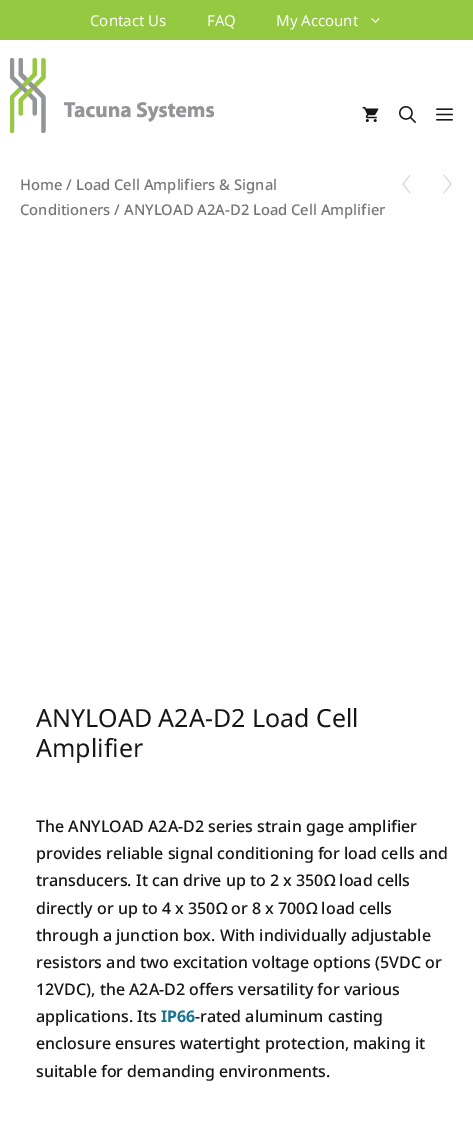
%!PS
<< /PageSize [473 1122] >> setpagedevice
/rgb { dup -16 bitshift 255 div exch dup -8 bitshift 255 and 255 div exch 255 and 255 div setrgbcolor } def
/font { [ exch dup neg 0 0 3 -1 roll 0 0 ] selectfont } def
/text { moveto show } def
/picture { 5 dict begin { /h /w /y /x /name } { exch def } forall
  gsave x y translate w h scale
  w h 8 [w 0 0 h 0 0] name (r) file false 3 colorimage grestore end } def
0 1122 translate 1 -1 scale
4 setmiterlimit
/s1 { /NotoSans-Regular 15 font 16#FFFFFF rgb } def
/s2 { /NotoSans-Medium 14.75 font 16#767676 rgb } def
/s3 { /NotoSans-Thin 50 font 16#D6D6D6 rgb } def
/s4 { /NotoSans-Regular 25 font 16#161616 rgb } def
/s5 { /NotoSans-Medium 16 font 16#161616 rgb } def
/s6 { /NotoSans-Bold 16 font 16#177592 rgb } def
16#FFFFFF rgb
0 0 473 1122 rectfill
16#96C942 rgb
0 0 473 40 rectfill
s1
(Contact Us) 90 26 text
(FAQ) 207 26 text
(My Account) 276 26 text
(pic1.raw) 371 18 9 5 picture
(pic2.raw) 10 58 204 75 picture
(pic3.raw) 362 106 17 16 picture
(pic4.raw) 399 106 17 17 picture
(pic5.raw) 436 108 17 13 picture
s2
(Home / Load Cell Amplifiers & Signal) 20 190 text
(Conditioners / ANYLOAD A2A-D2 Load Cell Amplifier) 20 215 text
s3
(‹) 401 198 text
(›) 442 198 text
s4
(ANYLOAD A2A-D2 Load Cell) 36 727 text
(Amplifier) 36 757 text
s5
(The ANYLOAD A2A-D2 series strain gage amplifier) 36 832 text
(provides reliable signal conditioning for load cells and) 36 859 text
(transducers. It can drive up to 2 x 350Ω load cells) 36 886 text
(directly or up to 4 x 350Ω or 8 x 700Ω load cells) 36 914 text
(through a junction box. With individually adjustable) 36 941 text
(resistors and two excitation voltage options \(5VDC or) 36 968 text
(12VDC\), the A2A-D2 offers versatility for various) 36 995 text
(applications. Its) 36 1022 text
s6
(IP66) 161 1022 text
s5
(-rated aluminum casting) 195 1022 text
(enclosure ensures watertight protection, making it) 36 1049 text
(suitable for demanding environments.) 36 1077 text
showpage
